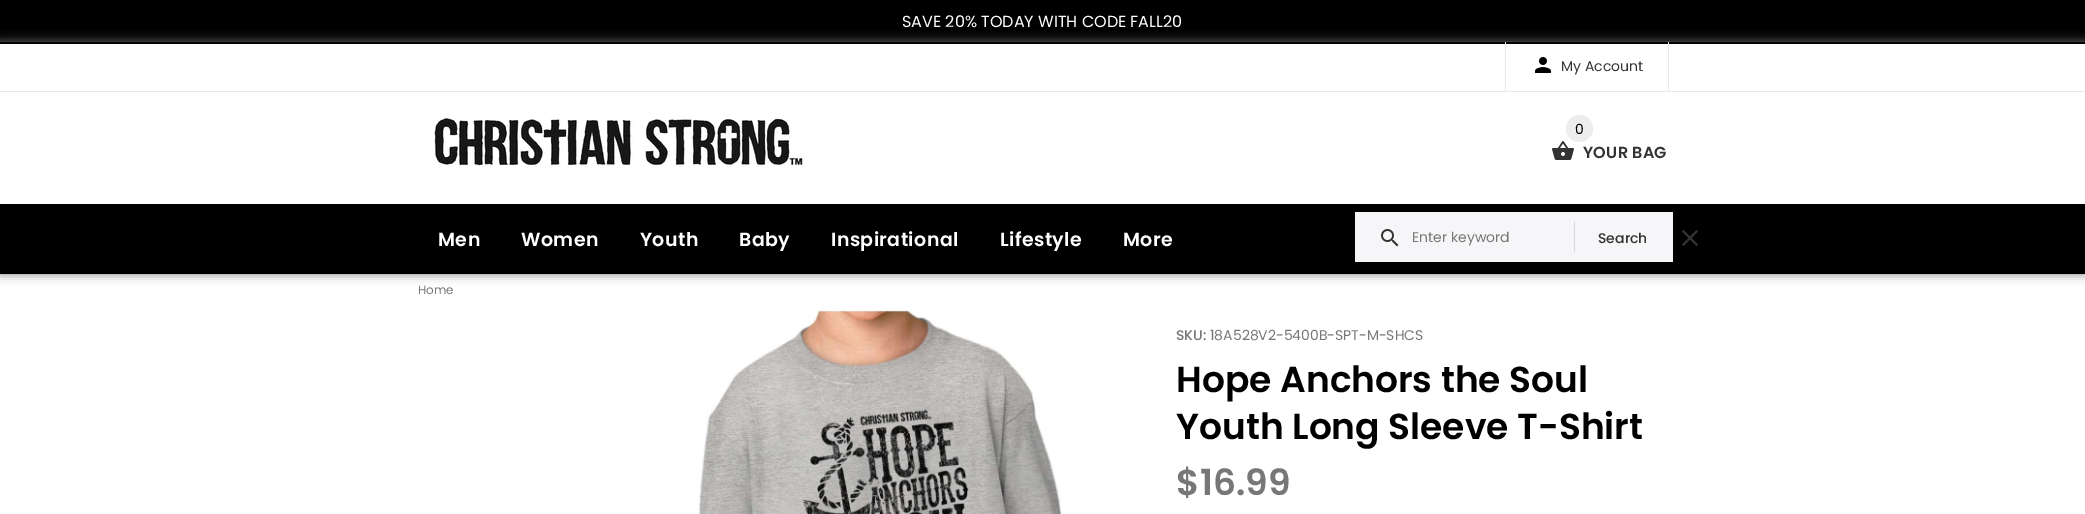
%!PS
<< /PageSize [2085 514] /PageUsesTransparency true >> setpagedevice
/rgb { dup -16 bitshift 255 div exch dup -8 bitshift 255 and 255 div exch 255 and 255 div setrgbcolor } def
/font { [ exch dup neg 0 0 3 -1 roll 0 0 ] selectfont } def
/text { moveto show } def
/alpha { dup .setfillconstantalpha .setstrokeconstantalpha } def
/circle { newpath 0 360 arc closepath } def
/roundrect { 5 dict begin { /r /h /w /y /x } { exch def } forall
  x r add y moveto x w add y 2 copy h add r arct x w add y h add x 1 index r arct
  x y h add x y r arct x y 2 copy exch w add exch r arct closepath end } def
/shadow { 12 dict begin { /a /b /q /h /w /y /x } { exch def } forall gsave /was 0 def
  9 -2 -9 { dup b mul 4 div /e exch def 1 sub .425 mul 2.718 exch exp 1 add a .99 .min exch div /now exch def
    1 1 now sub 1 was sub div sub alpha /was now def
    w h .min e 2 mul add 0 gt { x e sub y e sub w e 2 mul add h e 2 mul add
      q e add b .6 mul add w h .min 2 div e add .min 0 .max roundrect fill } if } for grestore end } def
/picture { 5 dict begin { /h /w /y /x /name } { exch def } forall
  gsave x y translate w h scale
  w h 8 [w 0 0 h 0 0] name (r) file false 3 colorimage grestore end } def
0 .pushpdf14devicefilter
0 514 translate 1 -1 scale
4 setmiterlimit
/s1 { /Poppins-Regular 16 font 16#FFFFFF rgb } def
/s2 { /Poppins-Regular 14 font 16#333333 rgb } def
/s3 { /Poppins-Regular 14 font 16#000000 rgb } def
/s4 { /Poppins-Regular 14 font 16#777777 rgb } def
/s5 { /Poppins-Medium 14 font 16#333333 rgb } def
/s6 { /Poppins-Regular 12 font 16#777777 rgb } def
/s7 { /Poppins-Medium 14 font 16#777777 rgb } def
/s8 { /Poppins-SemiBold 36 font 16#000000 rgb } def
/s9 { /Poppins-SemiBold 36 font 16#777777 rgb } def
16#FFFFFF rgb
0 0 2085 514 rectfill
16#000000 rgb
0 0 2085 44 rectfill
s1
(SAVE 20% TODAY WITH CODE FALL20) 902 27 text
gsave
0 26 moveto 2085 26 lineto 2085 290 lineto 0 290 lineto closepath 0 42 moveto 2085 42 lineto 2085 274 lineto 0 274 lineto closepath eoclip newpath
16#777777 rgb
0 42 2085 232 0 5 1 shadow
grestore
16#E9E9E9 rgb
1668 42 1 49 rectfill
1505 42 1 49 rectfill
(pic1.raw) 1535 57 16 16 picture
s2
(My Account) 1561 71 text
16#E9E9E9 rgb
0 91 2085 1 rectfill
(pic2.raw) 434 116 369 51 picture
(pic3.raw) 1552 141 22 19 picture
16#EDEDED rgb
1579.5 128.5 13.5 circle fill
s3
(0) 1575 134 text
/Poppins-SemiBold 16 font
16#333333 rgb
1583 158 moveto 0.25 0 (YOUR BAG) ashow
16#000000 rgb
0 204 2085 70 rectfill
/Poppins-SemiBold 19 font
16#FFFFFF rgb
438 246 moveto 0.4 0 (Men) ashow
521 246 moveto 0.4 0 (Women) ashow
640 246 moveto 0.4 0 (Youth) ashow
739 246 moveto 0.4 0 (Baby) ashow
831 246 moveto 0.4 0 (Inspirational) ashow
1000 246 moveto 0.4 0 (Lifestyle) ashow
1123 246 moveto 0.4 0 (More) ashow
16#F6F6F8 rgb
1355 212 318 50 rectfill
(pic4.raw) 1381 229 18 18 picture
s4
(Enter keyword) 1412 242 text
16#D8D8D8 rgb
1574 221 1 31 rectfill
s5
(Search) 1598 243 text
(pic5.raw) 1682 230 16 16 picture
s6
(Home) 418 294 text
(pic6.raw) 698 310 364 204 picture
s7
(SKU:) 1176 340 text
s4
(18A528V2-5400B-SPT-M-SHCS) 1210 340 text
s8
(Hope Anchors the Soul) 1176 392 text
(Youth Long Sleeve T-Shirt) 1176 439 text
s9
($16.99) 1176 495 text
.poppdf14devicefilter showpage
